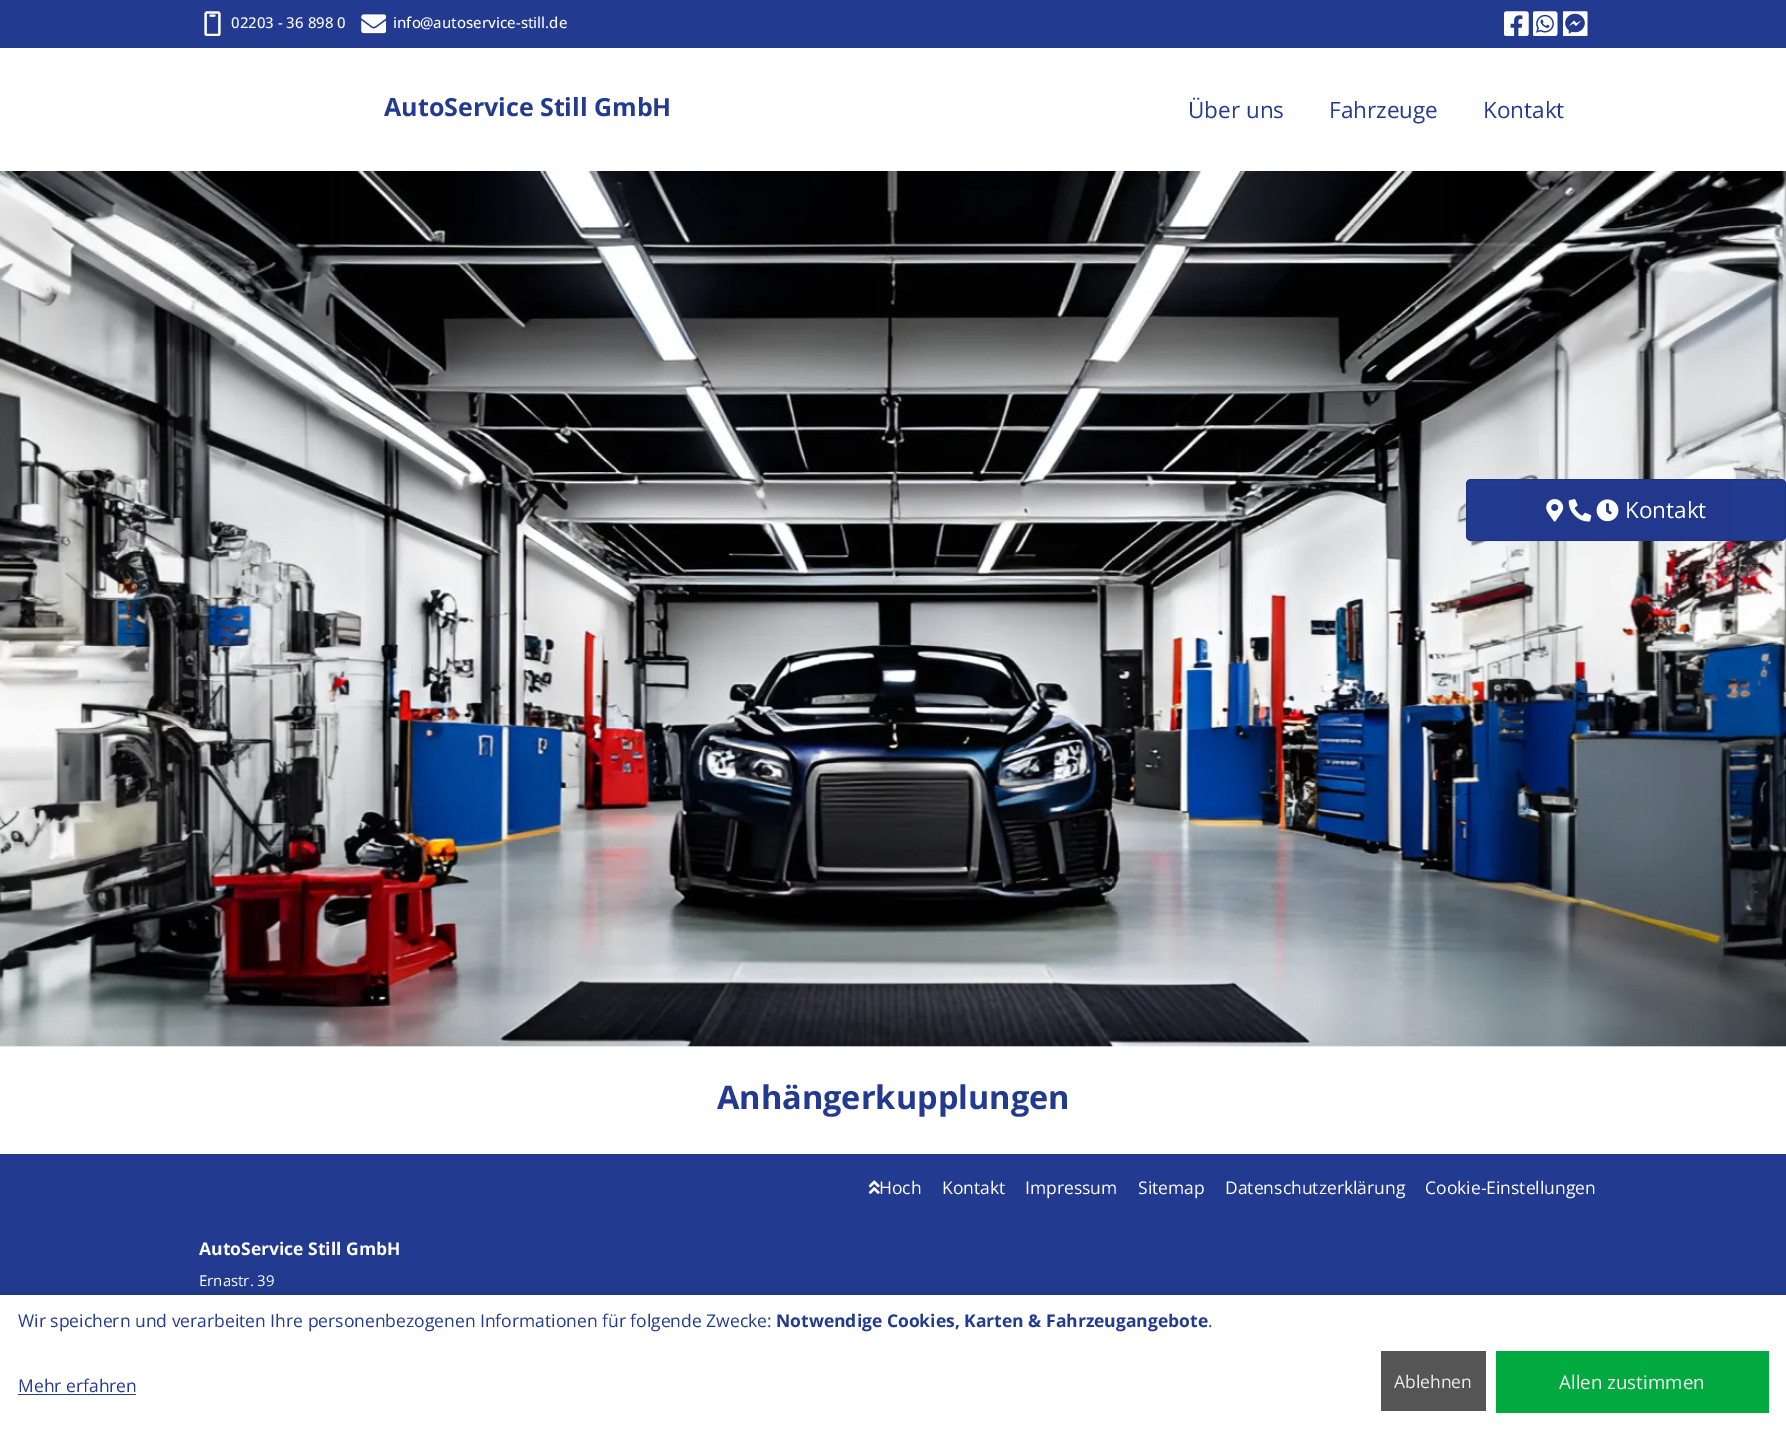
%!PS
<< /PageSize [1786 1450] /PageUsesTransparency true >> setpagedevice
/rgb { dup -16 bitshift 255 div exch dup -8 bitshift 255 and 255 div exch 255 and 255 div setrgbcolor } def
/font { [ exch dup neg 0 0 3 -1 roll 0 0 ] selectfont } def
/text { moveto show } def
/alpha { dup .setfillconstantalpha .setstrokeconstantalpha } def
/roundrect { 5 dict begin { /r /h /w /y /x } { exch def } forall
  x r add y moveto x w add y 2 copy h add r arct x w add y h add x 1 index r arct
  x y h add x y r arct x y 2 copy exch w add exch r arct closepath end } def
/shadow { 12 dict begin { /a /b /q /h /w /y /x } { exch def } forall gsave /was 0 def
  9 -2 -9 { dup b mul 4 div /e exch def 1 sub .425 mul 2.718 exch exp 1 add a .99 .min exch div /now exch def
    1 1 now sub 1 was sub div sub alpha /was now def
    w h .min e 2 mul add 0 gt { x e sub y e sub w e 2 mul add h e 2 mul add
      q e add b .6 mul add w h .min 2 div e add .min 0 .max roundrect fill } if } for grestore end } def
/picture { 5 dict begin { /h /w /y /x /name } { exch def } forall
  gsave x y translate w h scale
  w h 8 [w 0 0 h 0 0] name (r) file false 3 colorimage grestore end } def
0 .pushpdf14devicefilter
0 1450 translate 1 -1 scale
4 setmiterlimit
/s1 { /OpenSans-Medium 15 font 16#FFFFFF rgb } def
/s2 { /OpenSans-Bold 25 font 16#223A90 rgb } def
/s3 { /OpenSans-Regular 22.5 font 16#223A90 rgb } def
/s4 { /OpenSans-Regular 22.5 font 16#FFFFFF rgb } def
/s5 { /OpenSans-Bold 32.5 font 16#223A90 rgb } def
/s6 { /OpenSans-Regular 17.5 font 16#FFFFFF rgb } def
/s7 { /OpenSans-Bold 17.5 font 16#FFFFFF rgb } def
/s8 { /OpenSans-Regular 15 font 16#FFFFFF rgb } def
/s9 { /OpenSans-Regular 17.5 font 16#223A90 rgb } def
/s10 { /OpenSans-Bold 17.5 font 16#223A90 rgb } def
/s11 { /OpenSans-Regular 17.5 font 16#EEEEEE rgb } def
/s12 { /OpenSans-Regular 18.75 font 16#EEEEEE rgb } def
16#FFFFFF rgb
0 0 1786 1450 rectfill
16#223A90 rgb
0 0 1786 48 rectfill
(pic1.raw) 204 11 17 25 picture
s1
(02203 - 36 898 0) 231 28 text
(pic2.raw) 361 14 25 20 picture
(info) 393 28 text
(@autoservice-still.de) 420 28 text
(pic3.raw) 1504 11 25 25 picture
(pic4.raw) 1533 11 25 25 picture
(pic5.raw) 1563 11 25 25 picture
s2
(AutoService Still GmbH) 384 116 text
s3
(Über uns) 1188 118 text
(Fahrzeuge) 1329 118 text
(Kontakt) 1483 118 text
(pic9.raw) 0 171 1786 876 picture
1466 479 320 62 5 roundrect fill
0.12 alpha
16#000000 rgb
1466.5 479.5 319 61 4.5 roundrect stroke
1 alpha
16#21388C rgb
1520 480 213 60 rectfill
(pic6.raw) 1546 499 18 23 picture
(pic7.raw) 1568 499 24 23 picture
(pic8.raw) 1596 499 23 23 picture
s4
(Kontakt) 1625 518 text
s5
(Anhängerkupplungen) 717 1109 text
0 1154 1786 141 rectfill
(pic10.raw) 868 1180 12 14 picture
s6
(Hoch) 879 1194 text
(Kontakt) 942 1194 text
(Impressum) 1025 1194 text
(Sitemap) 1138 1194 text
(Datenschutzerklärung) 1225 1194 text
(Cookie-Einstellungen) 1425 1194 text
s7
(AutoService Still GmbH) 199 1255 text
s8
(Ernastr. 39) 199 1286 text
16#000000 rgb
-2 1293 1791 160 0 6 0.1 shadow
16#FFFFFF rgb
0 1295 1786 155 rectfill
s9
(Wir speichern und verarbeiten Ihre personenbezogenen Informationen für folgende Zwecke:) 18 1327 text
s10
(Notwendige Cookies, Karten & Fahrzeugangebote) 776 1327 text
s9
(.) 1208 1327 text
(Mehr erfahren) 18 1392 text
18 1394 118 1 rectfill
16#555555 rgb
1381 1351 105 60 rectfill
s11
(Ablehnen) 1394 1388 text
16#00AA3E rgb
1496 1351 273 62 rectfill
s12
(Allen zustimmen) 1559 1389 text
.poppdf14devicefilter showpage
